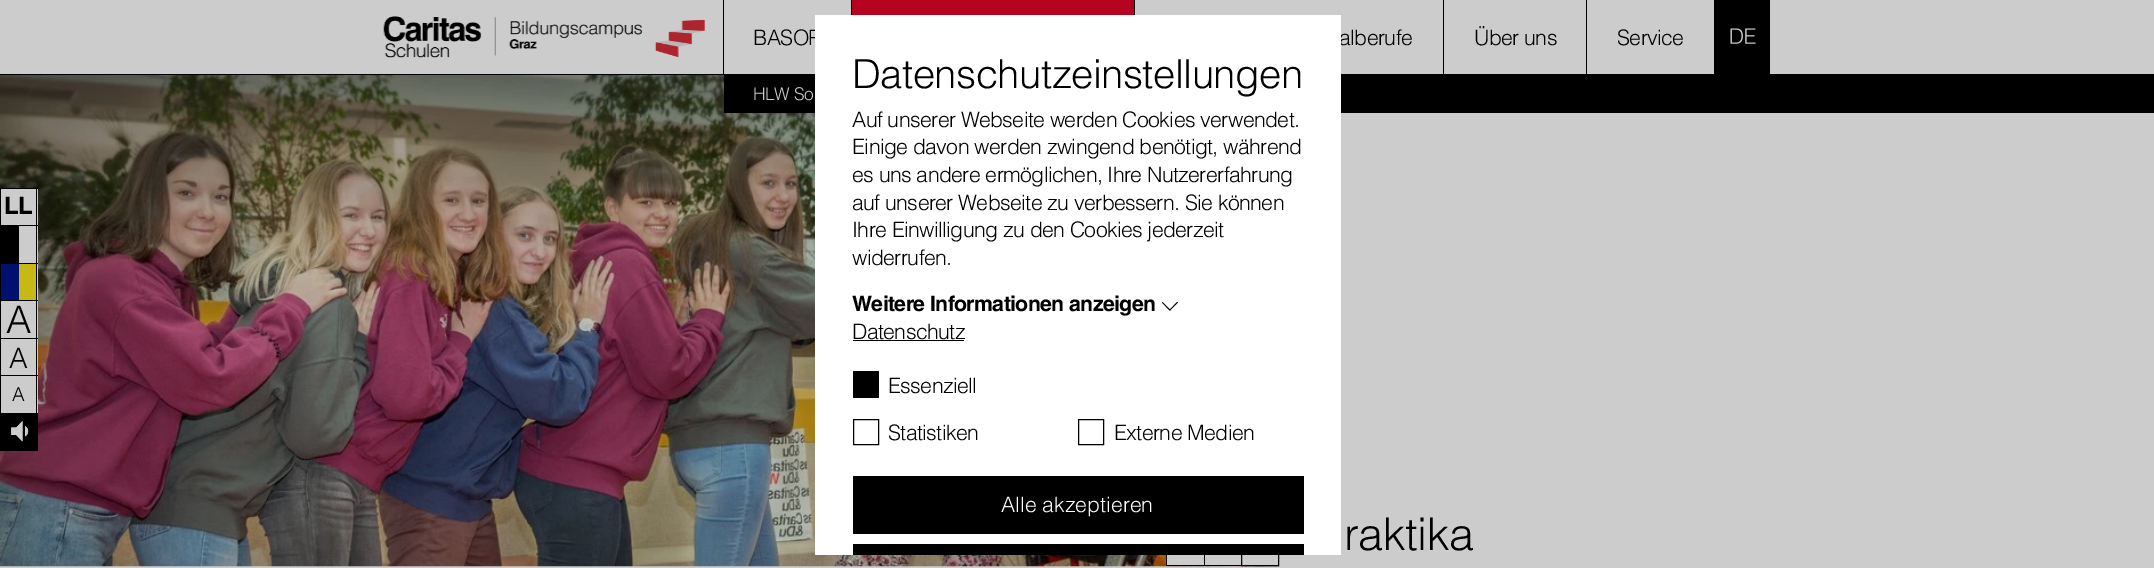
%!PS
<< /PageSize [2154 568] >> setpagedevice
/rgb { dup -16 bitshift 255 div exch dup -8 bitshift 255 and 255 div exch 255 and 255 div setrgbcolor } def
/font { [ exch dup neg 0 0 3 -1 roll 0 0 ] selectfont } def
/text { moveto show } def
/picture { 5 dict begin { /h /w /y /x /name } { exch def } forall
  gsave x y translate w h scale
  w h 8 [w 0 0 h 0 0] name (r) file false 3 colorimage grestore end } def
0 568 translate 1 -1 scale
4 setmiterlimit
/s1 { /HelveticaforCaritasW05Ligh-Light 38 font 16#000000 rgb } def
/s2 { /HelveticaforCaritasW05Ligh-Light 28 font 16#000000 rgb } def
/s3 { /HelveticaforCaritasW05Ligh-Light 19 font 16#000000 rgb } def
/s4 { /HelveticaforCaritasW05Ligh-Light 21.25 font 16#FFFFFF rgb } def
16#CCCCCC rgb
0 0 2154 568 rectfill
16#000000 rgb
0 74 2154 1 rectfill
(pic1.raw) 383 16 322 42 picture
723 0 1 74 rectfill
/HelveticaforCaritasW05Ligh-Light 21.25 font
753 45 moveto -0.6 0 (BASOP) ashow
16#B60320 rgb
852 0 282 15 rectfill
16#000000 rgb
851 0 1 15 rectfill
1134 0 1 15 rectfill
1339 45 moveto -0.6 0 (alberufe) ashow
1443 0 1 74 rectfill
1474 45 moveto -0.6 0 (Über uns) ashow
1586 0 1 74 rectfill
1617 45 moveto -0.6 0 (Service) ashow
1714 0 56 74 rectfill
(pic2.raw) 1730 28 26 16 picture
(pic5.raw) 0 75 1279 492 picture
724 75 1430 38 rectfill
/HelveticaforCaritasW05Ligh-Light 17.5 font
16#CCCCCC rgb
753 100 moveto -0.5 0 (HLW So) ashow
1 189 37 224 rectfill
16#000000 rgb
0 413 38 38 rectfill
0 188 38 1 rectfill
36 188 1 37 rectfill
0 188 1 37 rectfill
/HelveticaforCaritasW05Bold-Bold 24 font
4 214 moveto -0.6 0 (LL) ashow
0 225 38 1 rectfill
36 225 1 38 rectfill
0 225 1 38 rectfill
1 226 18 37 rectfill
0 263 38 1 rectfill
36 263 1 37 rectfill
0 263 1 37 rectfill
16#00106E rgb
1 264 18 36 rectfill
16#C6B916 rgb
19 264 17 36 rectfill
16#000000 rgb
0 300 38 1 rectfill
36 300 1 38 rectfill
0 300 1 38 rectfill
s1
(A) 6 333 text
0 338 38 1 rectfill
36 338 1 37 rectfill
0 338 1 37 rectfill
s2
(A) 9 368 text
0 375 38 1 rectfill
36 375 1 38 rectfill
0 375 1 38 rectfill
s3
(A) 12 401 text
(pic3.raw) 11 421 18 21 picture
(pic4.raw) 11 421 18 21 picture
16#CCCCCC rgb
1242 555 36 10 rectfill
16#000000 rgb
1241.5 529.5 37 36 rectstroke
16#FFFFFF rgb
815 15 526 540 rectfill
/HelveticaforCaritasW05Ligh-Light 40 font
16#000000 rgb
852 88 moveto -0.5 0 (Datenschutzeinstellungen) ashow
/HelveticaforCaritasW05Ligh-Light 21.25 font
852 127 moveto -0.6 0 (Auf unserer Webseite werden Cookies verwendet.) ashow
852 154 moveto -0.6 0 (Einige davon werden zwingend benötigt, während) ashow
852 182 moveto -0.6 0 (es uns andere ermöglichen, Ihre Nutzererfahrung) ashow
852 210 moveto -0.6 0 (auf unserer Webseite zu verbessern. Sie können) ashow
852 237 moveto -0.6 0 (Ihre Einwilligung zu den Cookies jederzeit) ashow
852 265 moveto -0.6 0 (widerrufen.) ashow
/HelveticaforCaritasW05Bold-Bold 21.25 font
852 311 moveto -0.6 0 (Weitere Informationen anzeigen) ashow
1162.5 302 moveto 1170.5 310 lineto 1169.5 310.5 lineto 1162 302.5 lineto closepath fill
1169.5 310 moveto 1177 302 lineto 1178 302.5 lineto 1170 310.5 lineto closepath fill
/HelveticaforCaritasW05Ligh-Light 21.25 font
852 339 moveto -0.6 0 (Datenschutz) ashow
853 340 111 1 rectfill
853 371 26 27 rectfill
888 393 moveto -0.6 0 (Essenziell) ashow
853.5 419.5 25 25 rectstroke
888 440 moveto -0.6 0 (Statistiken) ashow
1078.5 419.5 25 25 rectstroke
1114 440 moveto -0.6 0 (Externe Medien) ashow
853 476 451 58 rectfill
s4
(Alle akzeptieren) 1001 512 text
16#000000 rgb
853 544 451 11 rectfill
16#CCCCCC rgb
1167 555 37 10 rectfill
16#000000 rgb
1166 565 75 1 rectfill
1166 555 1 11 rectfill
16#CCCCCC rgb
1205 555 36 10 rectfill
16#000000 rgb
1204 555 1 11 rectfill
/HelveticaforCaritasW05Ligh-Light 45 font
1344 550 moveto -0.5 0 (raktika) ashow
showpage
